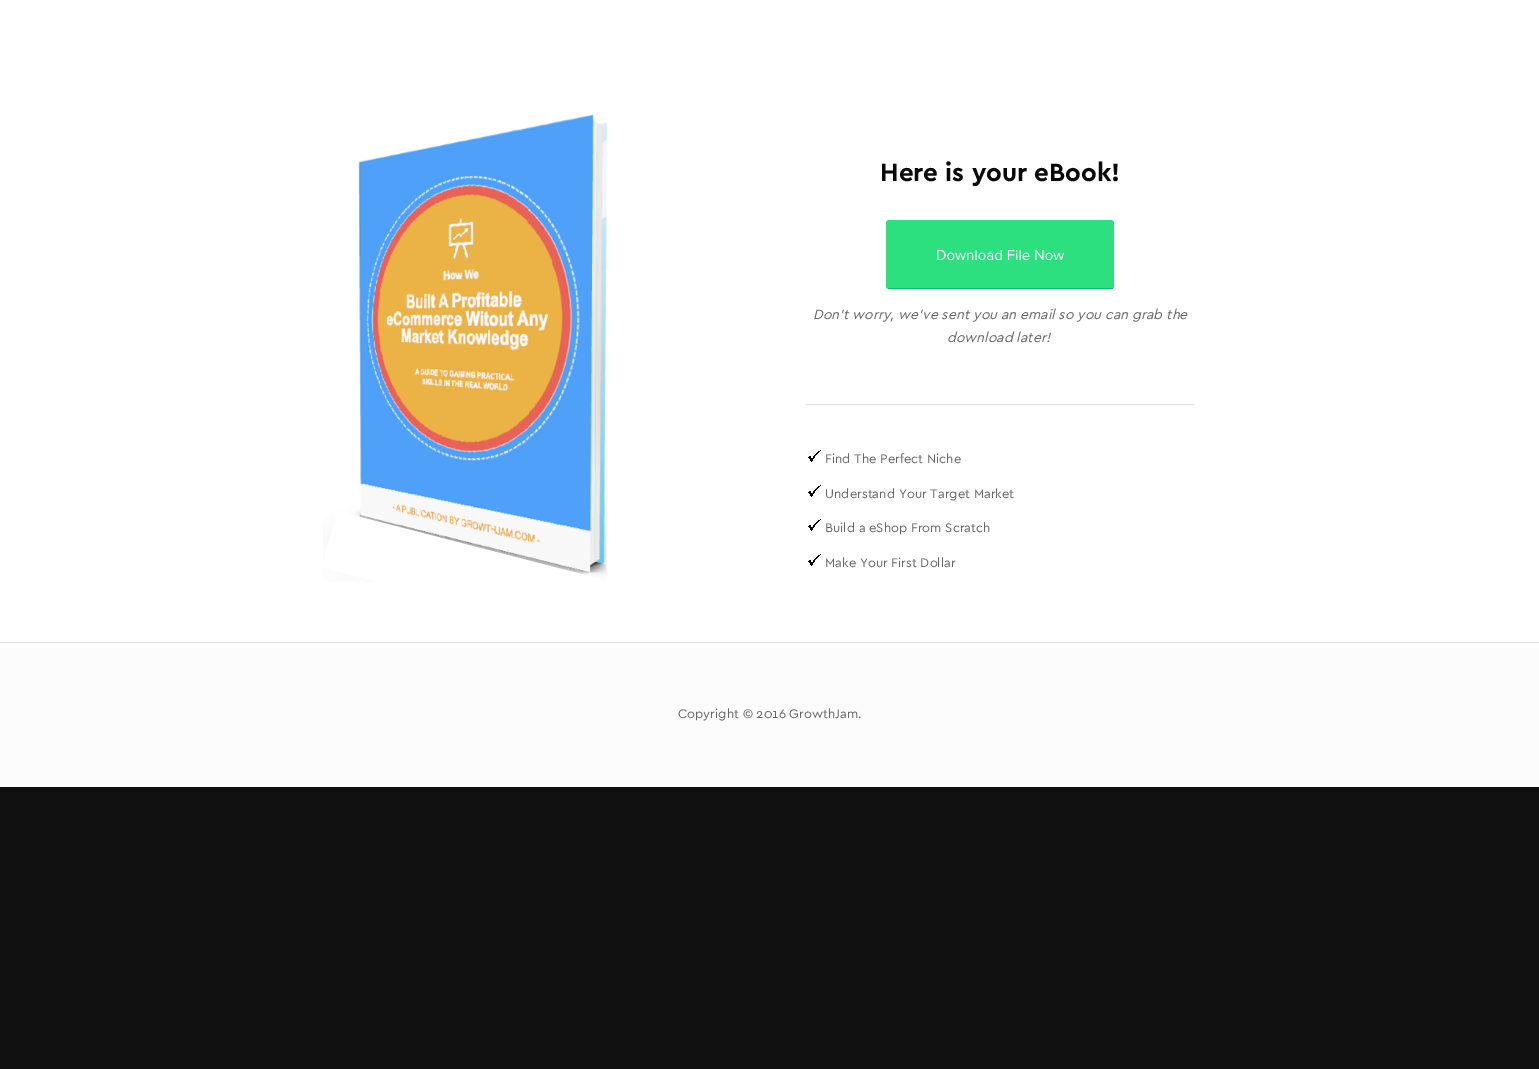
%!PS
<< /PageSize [1539 1069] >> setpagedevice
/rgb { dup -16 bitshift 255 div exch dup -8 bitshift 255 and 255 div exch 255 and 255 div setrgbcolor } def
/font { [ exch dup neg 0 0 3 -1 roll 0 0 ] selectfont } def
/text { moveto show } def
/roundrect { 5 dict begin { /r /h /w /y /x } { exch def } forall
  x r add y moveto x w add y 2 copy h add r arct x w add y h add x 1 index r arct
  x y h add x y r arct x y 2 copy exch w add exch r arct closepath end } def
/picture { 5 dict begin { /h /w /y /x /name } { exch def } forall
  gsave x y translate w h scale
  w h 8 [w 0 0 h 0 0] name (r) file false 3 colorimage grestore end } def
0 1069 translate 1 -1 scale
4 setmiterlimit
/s1 { /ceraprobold-Regular 26 font 16#0A0A0A rgb } def
/s2 { /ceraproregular-Italic 14 font 16#666666 rgb } def
/s3 { /ceraproregular-Regular 13 font 16#666666 rgb } def
16#111111 rgb
0 0 1539 1069 rectfill
16#FFFFFF rgb
0 0 1539 642 rectfill
(pic1.raw) 323 114 285 468 picture
s1
(Here is your eBook!) 880 181 text
16#2CE080 rgb
886 220 228 69 3 roundrect fill
16#0AC060 rgb
888 288 225 1 rectfill
(pic2.raw) 937 250 128 11 picture
s2
(Don’t worry, we’ve sent you an email so you can grab the) 813 319 text
(download later!) 947 342 text
16#E1E1E1 rgb
806 404 388 1 rectfill
(pic3.raw) 808 450 13 12 picture
s3
(Find The Perfect Niche) 825 463 text
(pic3.raw) 808 485 13 12 picture
(Understand Your Target Market) 825 498 text
(pic3.raw) 808 519 13 12 picture
(Build a eShop From Scratch) 825 532 text
(pic3.raw) 808 554 13 12 picture
(Make Your First Dollar) 825 567 text
16#FCFCFC rgb
0 643 1539 144 rectfill
16#E1E1E1 rgb
0 642 1539 1 rectfill
s3
(Copyright © 2016 GrowthJam.) 678 718 text
showpage
